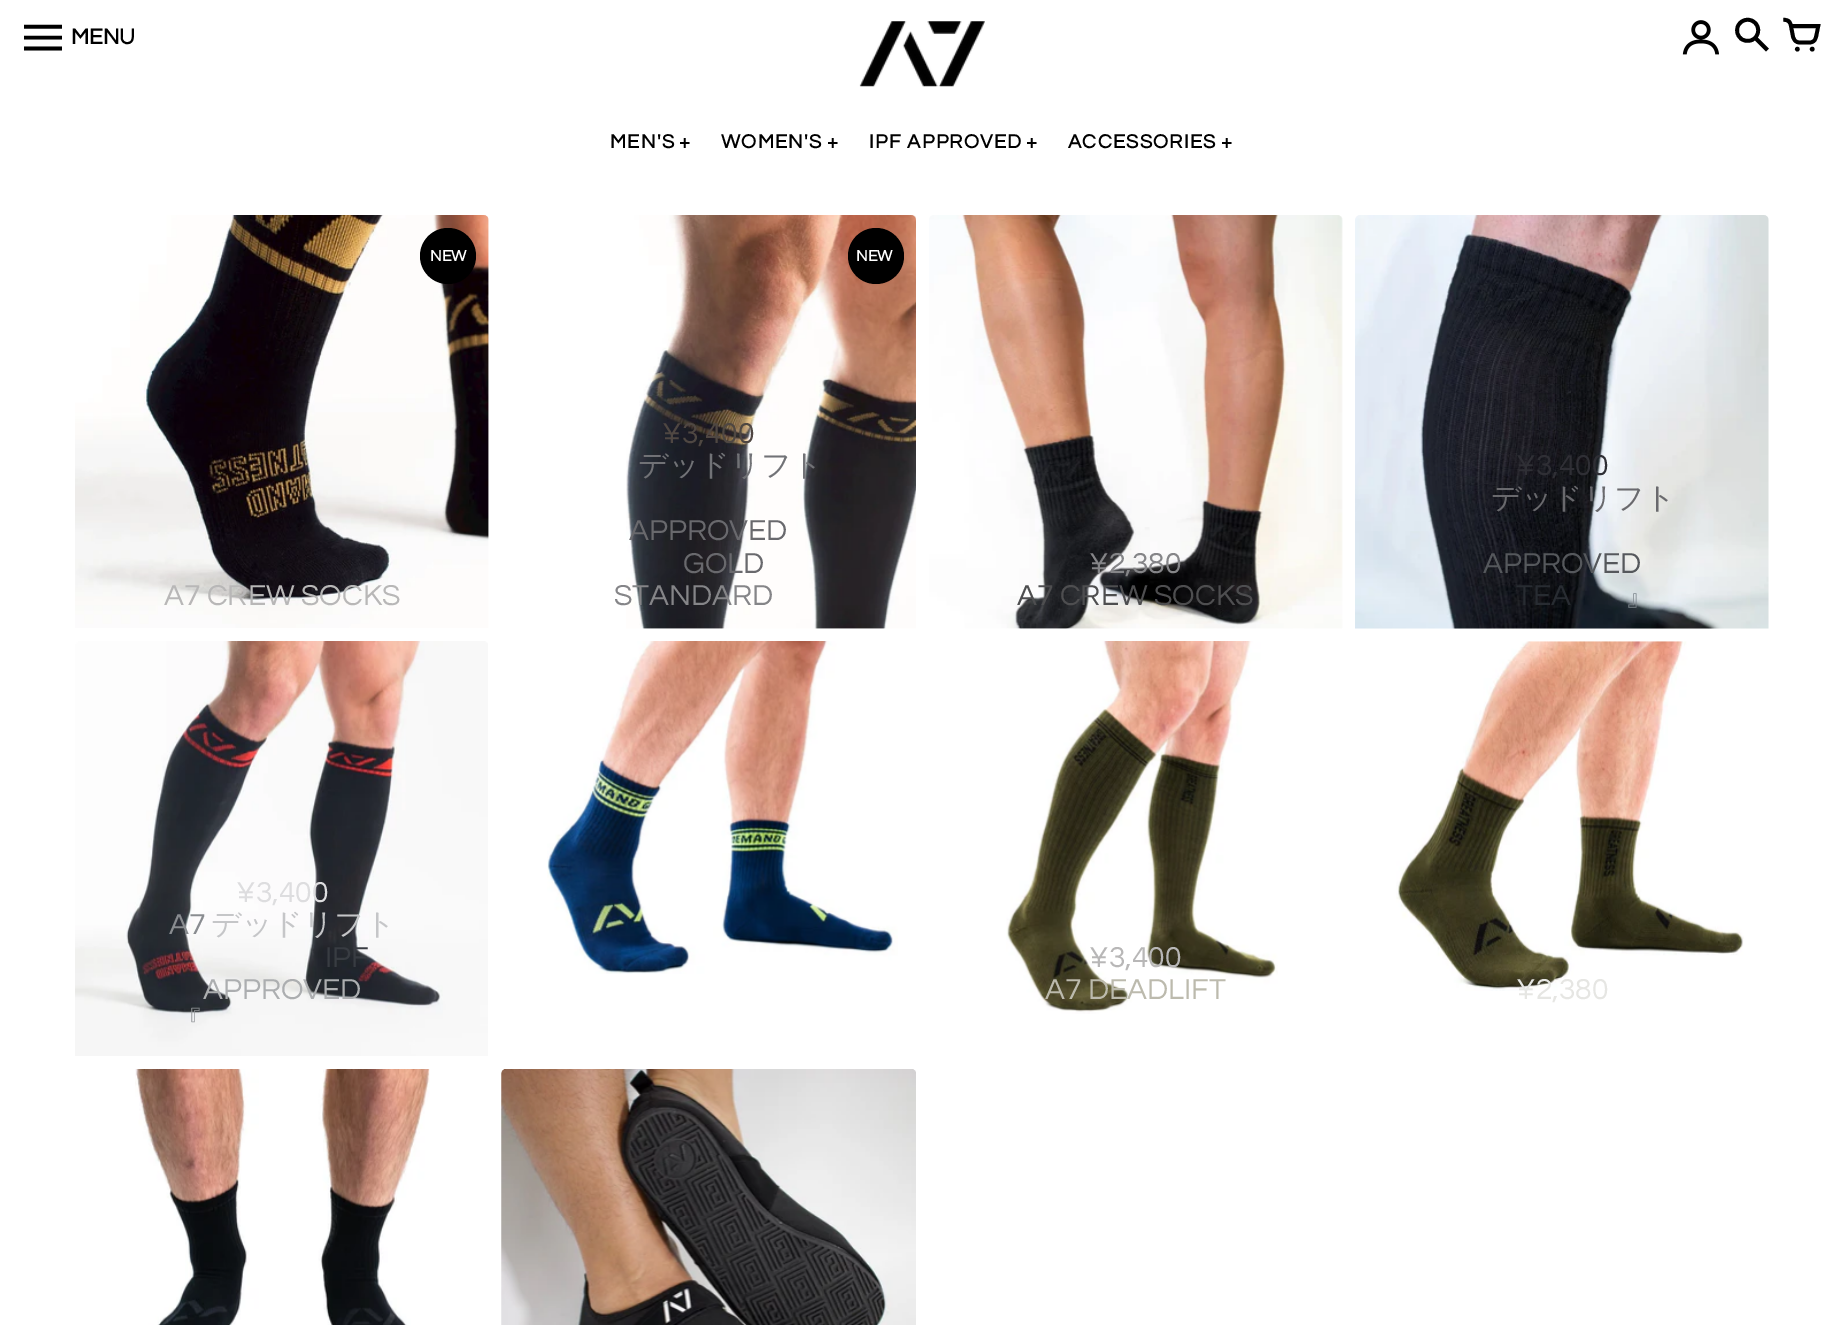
%!PS
<< /PageSize [1843 1325] >> setpagedevice
/rgb { dup -16 bitshift 255 div exch dup -8 bitshift 255 and 255 div exch 255 and 255 div setrgbcolor } def
/font { [ exch dup neg 0 0 3 -1 roll 0 0 ] selectfont } def
/text { moveto show } def
/circle { newpath 0 360 arc closepath } def
/picture { 5 dict begin { /h /w /y /x /name } { exch def } forall
  gsave x y translate w h scale
  w h 8 [w 0 0 h 0 0] name (r) file false 3 colorimage grestore end } def
0 1325 translate 1 -1 scale
4 setmiterlimit
/s1 { /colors-Regular 38 font 16#000000 rgb } def
/s2 { /Questrial-Bold 22.5 font 16#000000 rgb } def
/s3 { /Questrial-Bold 16 font 16#FFFFFF rgb } def
/s4 { /Questrial-Regular 30 font 16#B8B7B7 rgb } def
/s5 { /Questrial-Regular 30 font 16#4F4742 rgb } def
/s6 { /WenQuanYiZenHei-Medium 30 font 16#717276 rgb } def
/s7 { /Questrial-Regular 30 font 16#69696D rgb } def
/s8 { /Questrial-Regular 30 font 16#858588 rgb } def
/s9 { /Questrial-Regular 30 font 16#4E4E50 rgb } def
/s10 { /Questrial-Regular 30 font 16#2F2F35 rgb } def
/s11 { /WenQuanYiZenHei-Medium 30 font 16#69696D rgb } def
/s12 { /Questrial-Regular 30 font 16#55585C rgb } def
/s13 { /Questrial-Regular 30 font 16#282C32 rgb } def
/s14 { /WenQuanYiZenHei-Medium 30 font 16#7D868C rgb } def
/s15 { /Questrial-Regular 30 font 16#DDDDDF rgb } def
/s16 { /Questrial-Regular 30 font 16#898C90 rgb } def
/s17 { /WenQuanYiZenHei-Medium 30 font 16#C5C6C8 rgb } def
/s18 { /Questrial-Regular 30 font 16#383C42 rgb } def
/s19 { /Questrial-Regular 30 font 16#ACAEB0 rgb } def
/s20 { /WenQuanYiZenHei-Medium 30 font 16#96999C rgb } def
/s21 { /Questrial-Regular 30 font 16#BCBAAD rgb } def
/s22 { /Questrial-Regular 30 font 16#E6E6E3 rgb } def
16#FFFFFF rgb
0 0 1843 1325 rectfill
s1
(1) 24 59 text
s2
(MENU) 71 44 text
(pic1.raw) 859 21 126 66 picture
(pic2.raw) 1682 20 37 35 picture
s1
(2) 1733 56 text
(3) 1783 56 text
/Questrial-Bold 20 font
610 148 moveto 1.25 0 (MEN'S) ashow
679 148 moveto 1.25 0 (+) ashow
721 148 moveto 1.25 0 (WOMEN'S) ashow
827 148 moveto 1.25 0 (+) ashow
869 148 moveto 1.25 0 (IPF APPROVED) ashow
1026 148 moveto 1.25 0 (+) ashow
1068 148 moveto 1.25 0 (ACCESSORIES) ashow
1221 148 moveto 1.25 0 (+) ashow
(pic3.raw) 75 215 414 413 picture
448 256 28 circle fill
s3
(NEW) 430 261 text
s4
(A7 CREW SOCKS) 164 605 text
(pic4.raw) 626 215 290 414 picture
16#000000 rgb
876 256 28 circle fill
s3
(NEW) 856 261 text
s5
(¥3,400) 662 443 text
s6
(デッドリフト) 638 475 text
s7
(APPROVED) 629 540 text
(GOLD) 683 573 text
s8
(STANDARD) 614 605 text
(pic5.raw) 929 215 414 414 picture
(¥2,380) 1089 573 text
s9
(A7 CREW SOCKS) 1017 605 text
(pic6.raw) 1355 215 414 414 picture
s10
(¥3,400) 1516 475 text
s11
(デッドリフト) 1491 508 text
s12
(APPROVED) 1483 573 text
s13
(TEA) 1516 605 text
s14
(』) 1625 605 text
(pic7.raw) 75 641 413 415 picture
s15
(¥3,400) 236 902 text
s16
(A7) 169 934 text
s17
(デッドリフト) 211 934 text
s18
(IPF) 325 967 text
s19
(APPROVED) 203 999 text
s20
(『) 173 1032 text
(pic8.raw) 547 641 351 333 picture
(pic9.raw) 1006 641 272 373 picture
s4
(¥3,400) 1089 967 text
s21
(A7 DEADLIFT) 1045 999 text
(pic10.raw) 1396 641 348 350 picture
s22
(¥2,380) 1516 999 text
(pic11.raw) 135 1069 295 256 picture
(pic12.raw) 501 1069 415 256 picture
showpage
